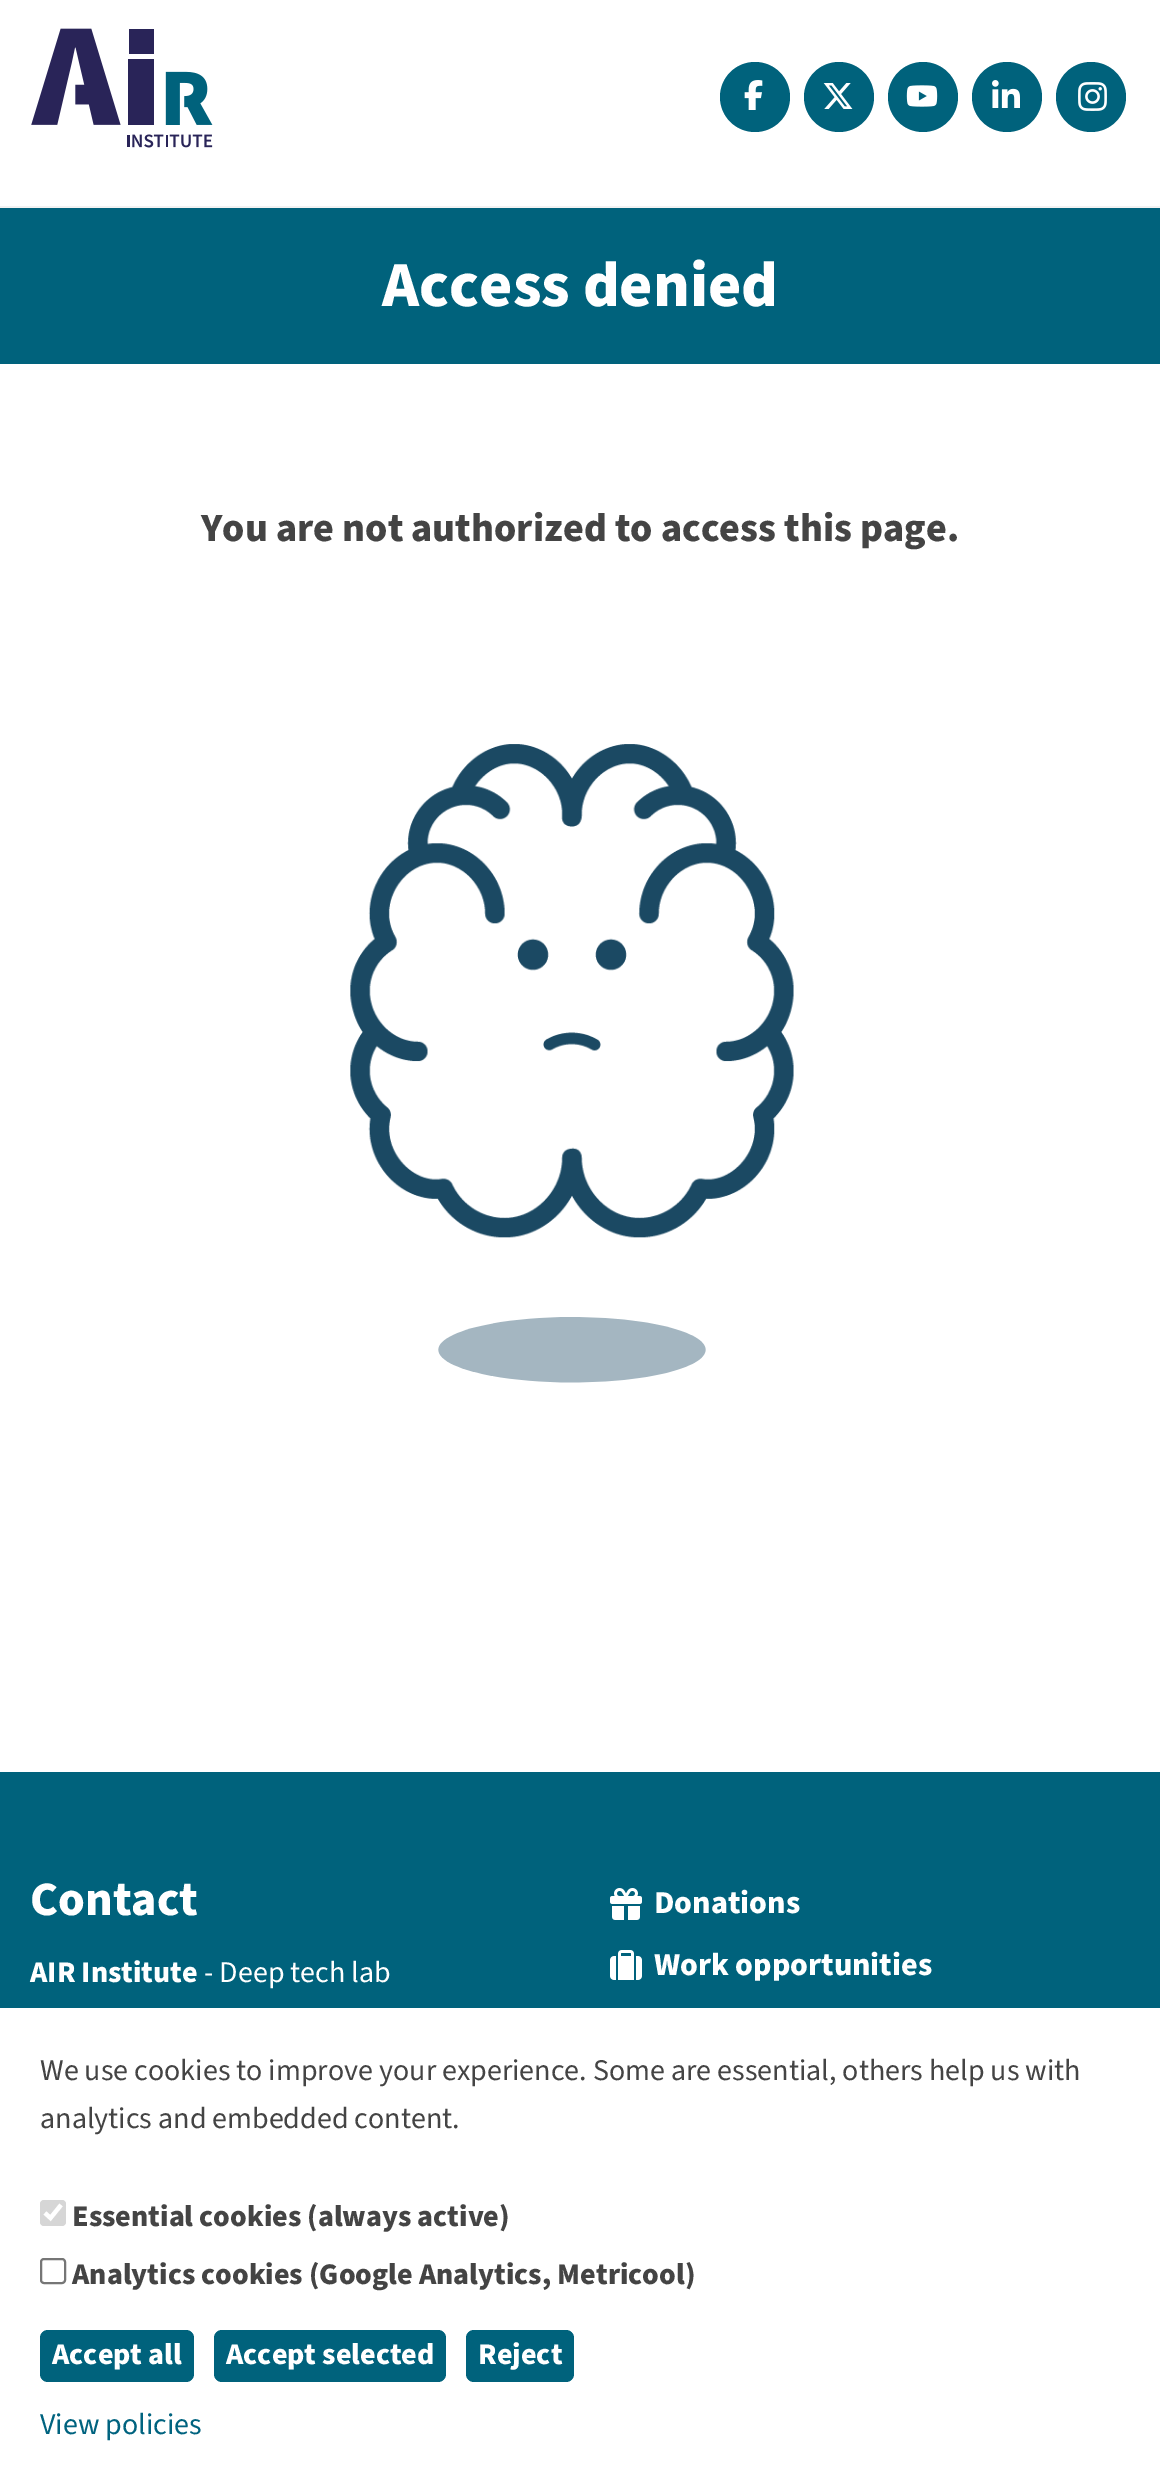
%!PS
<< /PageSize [1160 2490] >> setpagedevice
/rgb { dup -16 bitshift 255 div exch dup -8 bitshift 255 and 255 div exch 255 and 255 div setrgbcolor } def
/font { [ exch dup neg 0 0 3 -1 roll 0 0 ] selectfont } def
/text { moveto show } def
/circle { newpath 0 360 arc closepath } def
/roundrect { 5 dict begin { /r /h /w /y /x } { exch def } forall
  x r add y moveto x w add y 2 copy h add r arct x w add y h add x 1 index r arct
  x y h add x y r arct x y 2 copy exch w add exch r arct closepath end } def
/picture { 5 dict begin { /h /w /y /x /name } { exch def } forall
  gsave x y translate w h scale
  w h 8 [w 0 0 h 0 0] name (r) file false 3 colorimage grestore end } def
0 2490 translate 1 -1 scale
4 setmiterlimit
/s1 { /SourceSans3-ExtraBold 64 font 16#FFFFFF rgb } def
/s2 { /SourceSans3-ExtraBold 40 font 16#444444 rgb } def
/s3 { /SourceSans3-ExtraBold 48 font 16#FFFFFF rgb } def
/s4 { /SourceSans3-ExtraBold 30 font 16#FFFFFF rgb } def
/s5 { /SourceSans3-Regular 30 font 16#FFFFFF rgb } def
/s6 { /SourceSans3-ExtraBold 32 font 16#FFFFFF rgb } def
/s7 { /SourceSans3-Regular 30 font 16#444444 rgb } def
/s8 { /SourceSans3-ExtraBold 30 font 16#444444 rgb } def
/s9 { /SourceSans3-Regular 30 font 16#00637F rgb } def
16#FFFFFF rgb
0 0 1160 2490 rectfill
16#F2F2F2 rgb
0 206 1160 2 rectfill
(pic1.raw) 31 28 182 120 picture
16#00627C rgb
755 97 35 circle fill
(pic2.raw) 744 80 19 30 picture
839 97 35 circle fill
(pic3.raw) 823 83 30 26 picture
923 97 35 circle fill
(pic4.raw) 906 85 32 22 picture
1007 97 35 circle fill
(pic5.raw) 992 80 28 28 picture
1091 97 35 circle fill
(pic6.raw) 1078 82 29 29 picture
0 208 1160 156 rectfill
s1
(Access denied) 382 306 text
s2
(You are not authorized to access this page.) 201 541 text
(pic7.raw) 350 744 444 639 picture
16#00627C rgb
0 1772 1160 236 rectfill
s3
(Contact) 30 1915 text
s4
(AIR Institute) 30 1982 text
s5
(- Deep tech lab) 204 1982 text
(pic8.raw) 610 1888 32 32 picture
s6
(Donations) 654 1913 text
(pic9.raw) 610 1950 32 30 picture
(Work opportunities) 654 1975 text
s7
(We use cookies to improve your experience. Some are essential, others help us with) 40 2080 text
(analytics and embedded content.) 40 2128 text
16#D6D6D6 rgb
40 2200 26 26 4 roundrect fill
16#FFFFFF rgb
4.2 setlinewidth
45 2213 moveto 50.5 2218 lineto 61 2205 lineto stroke
s8
(Essential cookies \(always active\)) 72 2226 text
16#767676 rgb
2 setlinewidth
41 2259 24 24 3 roundrect stroke
s8
(Analytics cookies \(Google Analytics, Metricool\)) 72 2284 text
16#00627C rgb
40 2330 154 52 8 roundrect fill
s4
(Accept all) 52 2364 text
16#00627C rgb
214 2330 232 52 8 roundrect fill
s4
(Accept selected) 226 2364 text
16#00627C rgb
466 2330 108 52 8 roundrect fill
s4
(Reject) 478 2364 text
s9
(View policies) 40 2434 text
showpage
